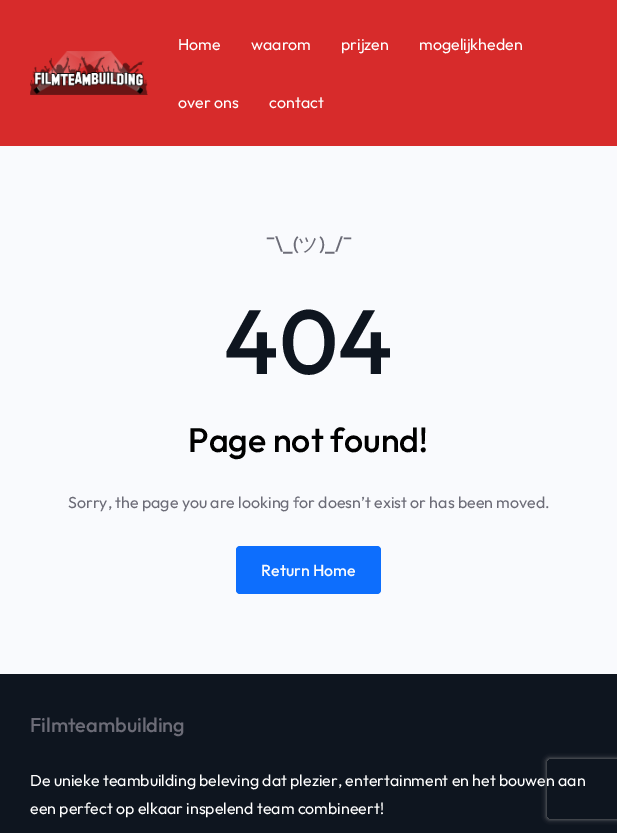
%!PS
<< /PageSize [617 833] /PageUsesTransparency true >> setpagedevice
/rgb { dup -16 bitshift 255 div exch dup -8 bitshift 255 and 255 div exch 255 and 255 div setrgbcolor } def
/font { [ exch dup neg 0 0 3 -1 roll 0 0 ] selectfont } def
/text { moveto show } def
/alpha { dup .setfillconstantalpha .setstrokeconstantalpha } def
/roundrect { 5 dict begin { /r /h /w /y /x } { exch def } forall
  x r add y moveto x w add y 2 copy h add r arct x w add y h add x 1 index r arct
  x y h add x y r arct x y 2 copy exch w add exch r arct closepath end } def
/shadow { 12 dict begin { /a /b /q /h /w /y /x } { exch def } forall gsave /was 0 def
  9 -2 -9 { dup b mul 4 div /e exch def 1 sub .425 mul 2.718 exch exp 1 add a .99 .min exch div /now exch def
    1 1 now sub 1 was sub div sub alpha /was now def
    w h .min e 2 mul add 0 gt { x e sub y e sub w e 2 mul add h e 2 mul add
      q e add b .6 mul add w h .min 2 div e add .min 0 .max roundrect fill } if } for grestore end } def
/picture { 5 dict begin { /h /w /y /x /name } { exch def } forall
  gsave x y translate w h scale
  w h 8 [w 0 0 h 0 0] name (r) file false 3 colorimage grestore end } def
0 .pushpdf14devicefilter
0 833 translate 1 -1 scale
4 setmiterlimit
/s1 { /Outfit-Regular 16 font 16#FFFFFF rgb } def
/s2 { /Outfit-Medium 20 font 16#6C6C77 rgb } def
/s3 { /WenQuanYiZenHei-Medium 20 font 16#6C6C77 rgb } def
/s4 { /Outfit-Medium 91 font 16#0E151F rgb } def
/s5 { /Outfit-Medium 34 font 16#000000 rgb } def
/s6 { /Outfit-Regular 16 font 16#6C6C77 rgb } def
/s7 { /Outfit-Medium 16 font 16#F9FAFD rgb } def
16#F9FAFD rgb
0 0 617 833 rectfill
16#D72B2B rgb
0 0 617 146 rectfill
(pic1.raw) 30 51 118 44 picture
s1
(Home) 178 50 text
(waarom) 251 50 text
(prijzen) 341 50 text
(mogelijkheden) 419 50 text
(over ons) 178 108 text
(contact) 269 108 text
s2
(¯\\_\() 266 251 text
s3
(ツ) 298 251 text
s2
(\)_/¯) 319 251 text
s4
(404) 224 374 text
s5
(Page not found!) 188 452 text
s6
(Sorry, the page you are looking for doesn’t exist or has been moved.) 68 508 text
16#0D6EFD rgb
236 546 145 48 4 roundrect fill
s7
(Return Home) 261 576 text
16#0E151F rgb
0 674 617 159 rectfill
s2
(Filmteambuilding) 30 732 text
s1
(De unieke teambuilding beleving dat plezier, entertainment en het bouwen aan) 30 786 text
(een perfect op elkaar inspelend team combineert!) 30 814 text
gsave
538 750 moveto 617 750 lineto 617 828 lineto 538 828 lineto closepath 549 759 moveto 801 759 lineto 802 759 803 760 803 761 curveto 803 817 lineto 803 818 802 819 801 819 curveto 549 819 lineto 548 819 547 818 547 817 curveto 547 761 lineto 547 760 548 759 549 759 curveto closepath eoclip newpath
16#808080 rgb
547 759 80 60 2 2.5 1 shadow
grestore
.poppdf14devicefilter showpage
